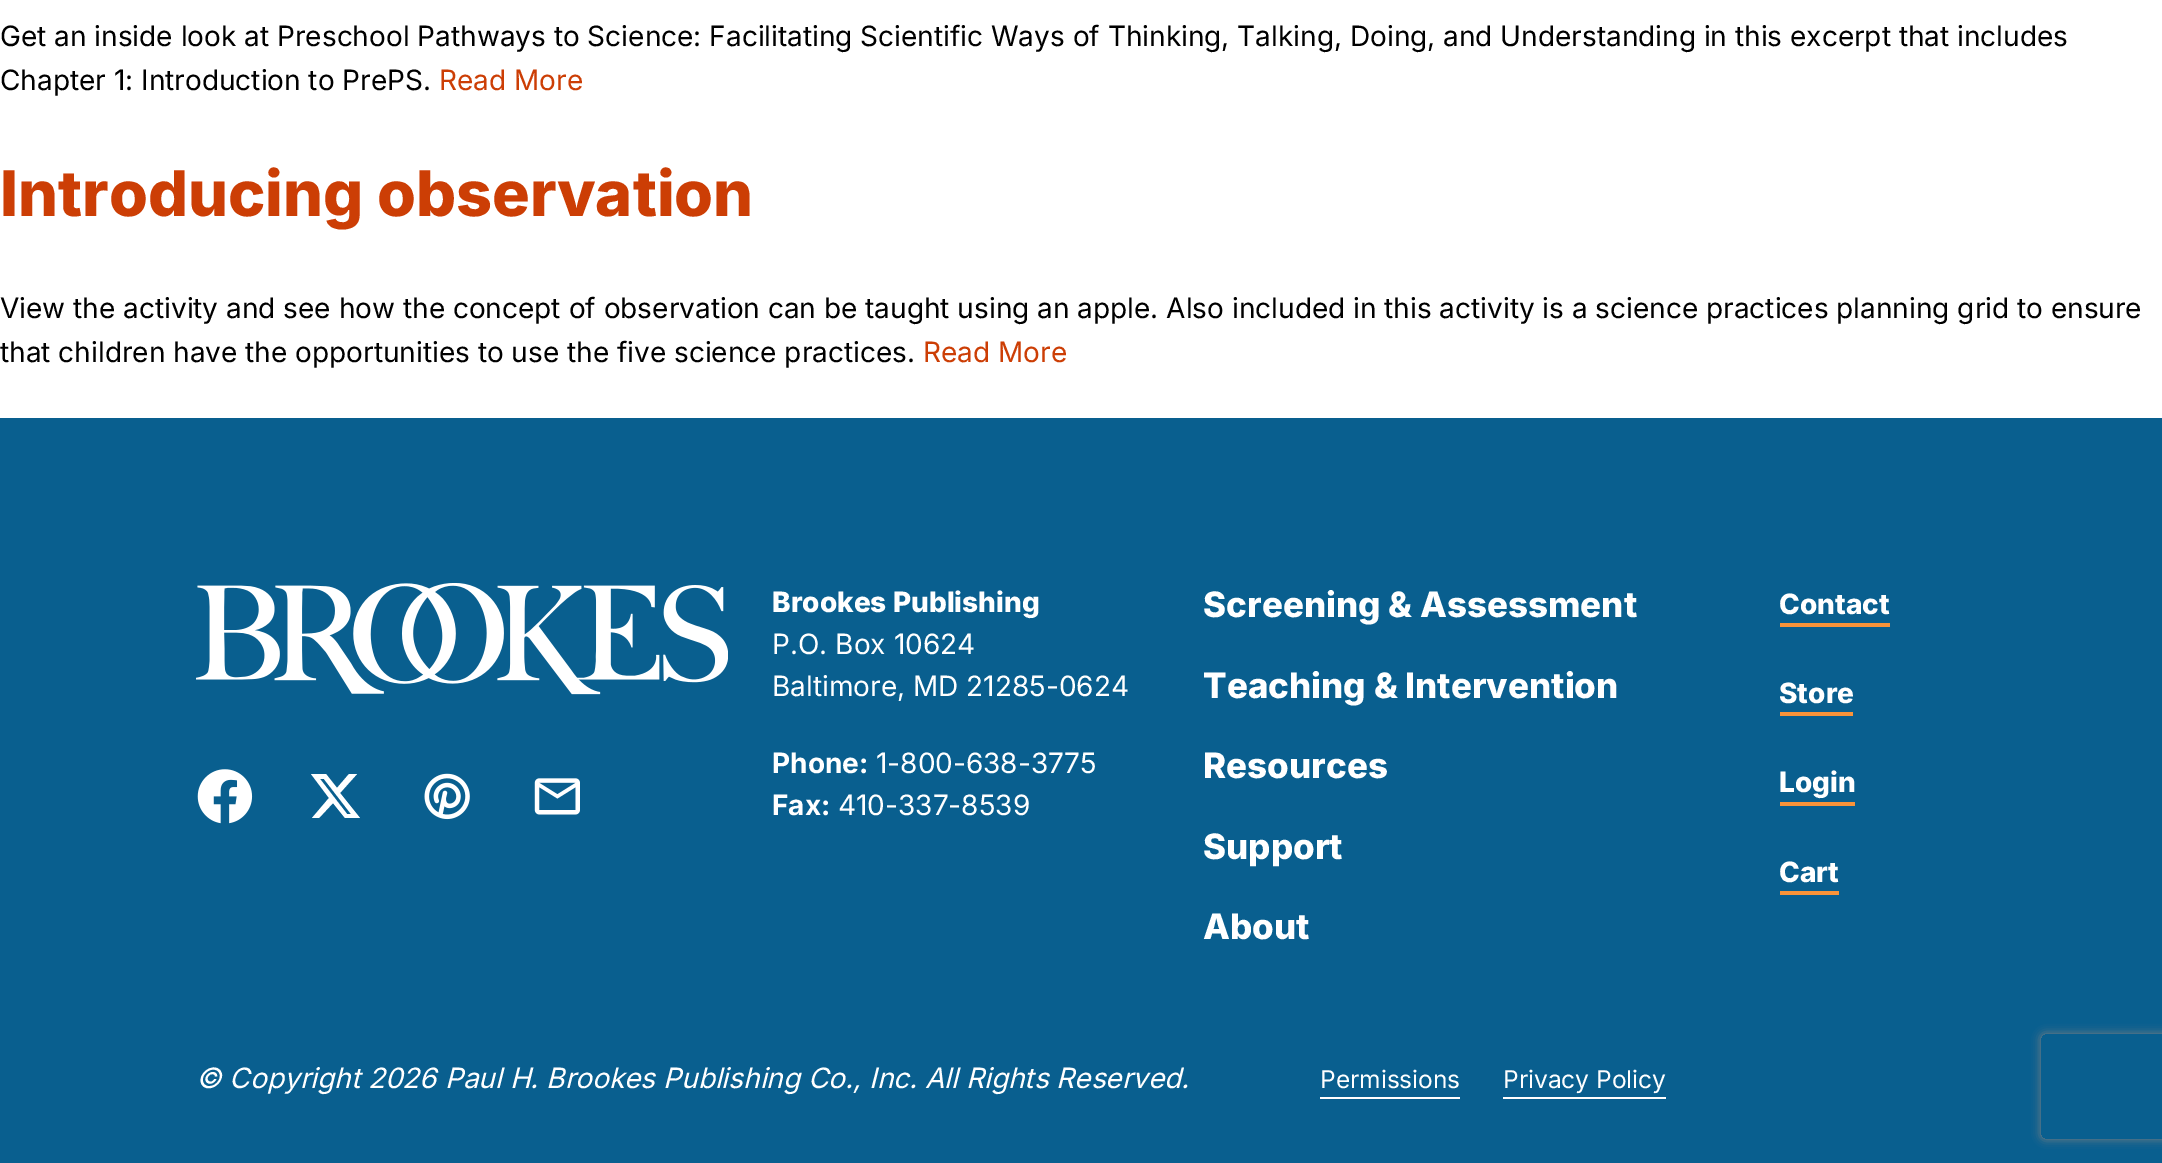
%!PS
<< /PageSize [2162 1163] /PageUsesTransparency true >> setpagedevice
/rgb { dup -16 bitshift 255 div exch dup -8 bitshift 255 and 255 div exch 255 and 255 div setrgbcolor } def
/font { [ exch dup neg 0 0 3 -1 roll 0 0 ] selectfont } def
/text { moveto show } def
/alpha { dup .setfillconstantalpha .setstrokeconstantalpha } def
/roundrect { 5 dict begin { /r /h /w /y /x } { exch def } forall
  x r add y moveto x w add y 2 copy h add r arct x w add y h add x 1 index r arct
  x y h add x y r arct x y 2 copy exch w add exch r arct closepath end } def
/shadow { 12 dict begin { /a /b /q /h /w /y /x } { exch def } forall gsave /was 0 def
  9 -2 -9 { dup b mul 4 div /e exch def 1 sub .425 mul 2.718 exch exp 1 add a .99 .min exch div /now exch def
    1 1 now sub 1 was sub div sub alpha /was now def
    w h .min e 2 mul add 0 gt { x e sub y e sub w e 2 mul add h e 2 mul add
      q e add b .6 mul add w h .min 2 div e add .min 0 .max roundrect fill } if } for grestore end } def
/picture { 5 dict begin { /h /w /y /x /name } { exch def } forall
  gsave x y translate w h scale
  w h 8 [w 0 0 h 0 0] name (r) file false 3 colorimage grestore end } def
0 .pushpdf14devicefilter
0 1163 translate 1 -1 scale
4 setmiterlimit
/s1 { /Inter-Regular 28 font 16#000000 rgb } def
/s2 { /Inter-Regular 28 font 16#CC3E05 rgb } def
/s3 { /Inter-ExtraBold 63 font 16#CC3E05 rgb } def
/s4 { /Inter-ExtraBold 28 font 16#FFFFFF rgb } def
/s5 { /Inter-Regular 28 font 16#FFFFFF rgb } def
/s6 { /Inter-Bold 28 font 16#FFFFFF rgb } def
/s7 { /Inter-ExtraBold 35 font 16#FFFFFF rgb } def
/s8 { /Inter-Italic 28 font 16#FFFFFF rgb } def
/s9 { /Inter-Regular 24.5 font 16#FFFFFF rgb } def
16#FFFFFF rgb
0 0 2162 1163 rectfill
s1
(Get an inside look at Preschool Pathways to Science: Facilitating Scientific Ways of Thinking, Talking, Doing, and Understanding in this excerpt that includes) 0 46 text
(Chapter 1: Introduction to PrePS.) 0 90 text
s2
(Read More) 439 90 text
s3
(Introducing observation) 0 216 text
s1
(View the activity and see how the concept of observation can be taught using an apple. Also included in this activity is a science practices planning grid to ensure) 0 318 text
(that children have the opportunities to use the five science practices.) 0 362 text
s2
(Read More) 923 362 text
16#095F8F rgb
0 418 2162 745 rectfill
(pic1.raw) 196 583 532 112 picture
(pic2.raw) 197 769 56 55 picture
16#FFFFFF rgb
349 774 moveto 357 774 lineto 340 793 lineto 360 818 lineto 345 818 lineto 333 803 lineto 319 818 lineto 312 818 lineto 329 798 lineto 311 774 lineto 326 774 lineto 337 788 lineto closepath 347 814 moveto 351 814 lineto 324 779 lineto 320 779 lineto closepath fill
(pic3.raw) 424 773 46 47 picture
(pic4.raw) 534 778 46 37 picture
s4
(Brookes Publishing) 772 612 text
s5
(P.O. Box 10624) 772 654 text
(Baltimore, MD 21285-0624) 772 696 text
s6
(Phone:) 772 773 text
s5
(1-800-638-3775) 876 773 text
s6
(Fax:) 772 815 text
s5
(410-337-8539) 838 815 text
s7
(Screening & Assessment) 1203 617 text
(Teaching & Intervention) 1203 698 text
(Resources) 1203 778 text
(Support) 1203 859 text
(About) 1203 939 text
s4
(Contact) 1779 614 text
16#F99339 rgb
1780 623 110 4 rectfill
s4
(Store) 1779 703 text
16#F99339 rgb
1780 712 73 4 rectfill
s4
(Login) 1779 792 text
16#F99339 rgb
1780 802 75 4 rectfill
s4
(Cart) 1779 882 text
16#F99339 rgb
1780 891 59 4 rectfill
s8
(© Copyright 2026 Paul H. Brookes Publishing Co., Inc. All Rights Reserved.) 196 1088 text
s9
(Permissions) 1320 1088 text
1320 1097 140 2 rectfill
(Privacy Policy) 1503 1088 text
1503 1097 163 2 rectfill
gsave
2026 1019 moveto 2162 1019 lineto 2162 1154 lineto 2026 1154 lineto closepath 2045 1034 moveto 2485 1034 lineto 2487 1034 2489 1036 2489 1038 curveto 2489 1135 lineto 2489 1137 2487 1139 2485 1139 curveto 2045 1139 lineto 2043 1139 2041 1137 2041 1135 curveto 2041 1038 lineto 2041 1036 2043 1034 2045 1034 curveto closepath eoclip newpath
16#808080 rgb
2041 1034 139 105 4 4.5 1 shadow
grestore
.poppdf14devicefilter showpage
